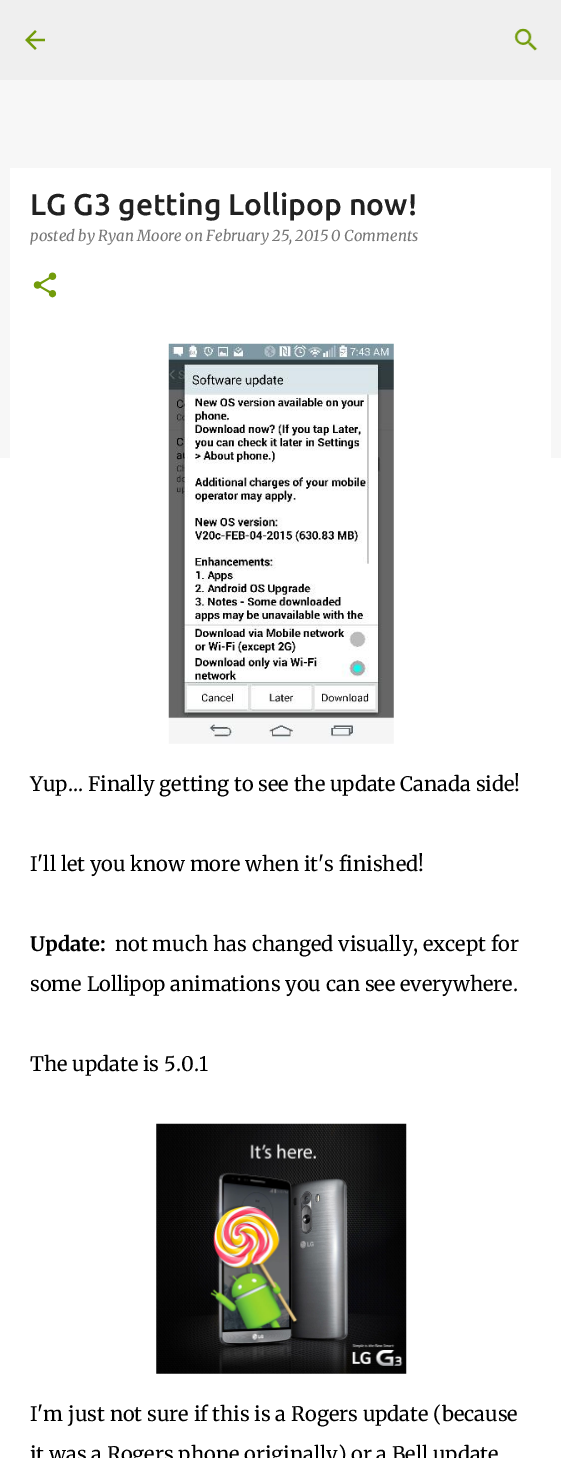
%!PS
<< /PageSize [561 1458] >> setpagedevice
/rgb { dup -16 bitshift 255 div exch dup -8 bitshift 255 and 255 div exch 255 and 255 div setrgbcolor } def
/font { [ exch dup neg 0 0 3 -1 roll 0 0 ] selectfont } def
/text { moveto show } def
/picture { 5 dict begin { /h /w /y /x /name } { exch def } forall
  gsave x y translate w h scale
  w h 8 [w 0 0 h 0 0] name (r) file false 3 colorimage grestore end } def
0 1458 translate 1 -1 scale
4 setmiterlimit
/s1 { /Ubuntu-Medium 30 font 16#212121 rgb } def
/s2 { /Merriweather-Italic 15 font 16#757575 rgb } def
/s3 { /Merriweather-Regular 20 font 16#000000 rgb } def
/s4 { /Merriweather-Bold 20 font 16#000000 rgb } def
16#F7F7F7 rgb
0 0 561 1458 rectfill
16#EFEFEF rgb
0 0 561 80 rectfill
(pic1.raw) 25 30 20 20 picture
(pic2.raw) 514 28 24 23 picture
16#FFFFFF rgb
0 458 561 1000 rectfill
10 168 541 290 rectfill
s1
(LG G3 getting Lollipop now!) 30 215 text
s2
(posted by Ryan Moore on February 25, 2015 0 Comments) 30 241 text
(pic3.raw) 33 272 24 26 picture
(pic4.raw) 168 343 226 401 picture
s3
(Yup... Finally getting to see the update Canada side!) 30 791 text
(I'll let you know more when it's finished!) 30 871 text
s4
(Update:) 30 951 text
s3
(not much has changed visually, except for) 115 951 text
(some Lollipop animations you can see everywhere.) 30 991 text
(The update is 5.0.1) 30 1071 text
(pic5.raw) 156 1123 251 251 picture
(I'm just not sure if this is a Rogers update \(because) 30 1421 text
(it was a Rogers phone originally\) or a Bell update) 30 1461 text
showpage
